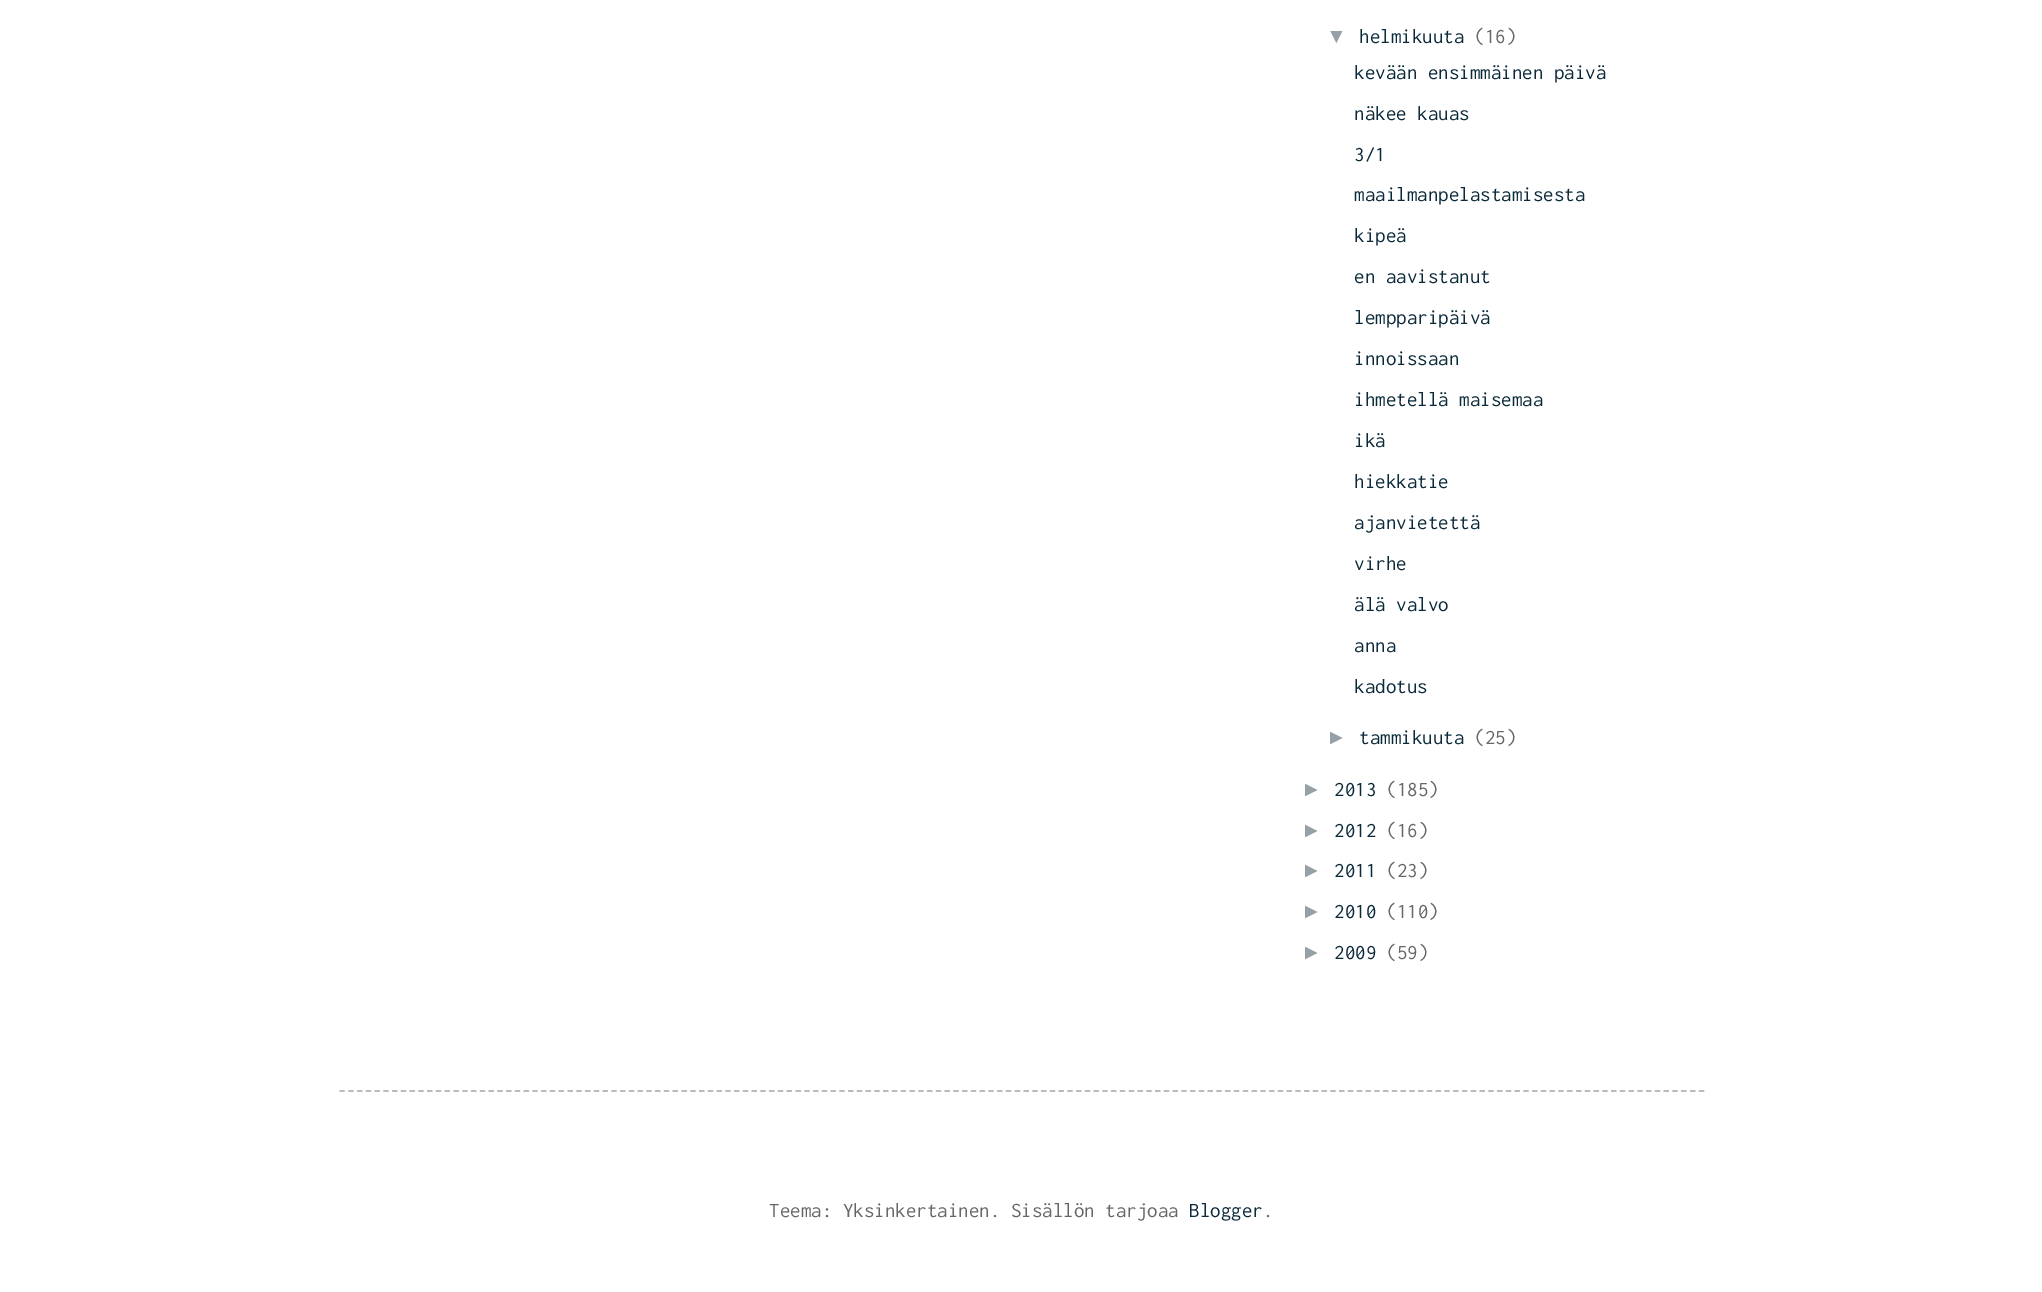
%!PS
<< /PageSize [2042 1292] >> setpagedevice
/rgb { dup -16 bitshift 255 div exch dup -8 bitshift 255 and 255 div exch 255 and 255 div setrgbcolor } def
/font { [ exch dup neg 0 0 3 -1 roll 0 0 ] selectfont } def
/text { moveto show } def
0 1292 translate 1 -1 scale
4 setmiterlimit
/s1 { /LiberationSans-Regular 21 font 16#95A0A7 rgb } def
/s2 { /Inconsolata-Regular 21 font 16#0A2939 rgb } def
/s3 { /Inconsolata-Regular 21 font 16#666666 rgb } def
16#FFFFFF rgb
0 0 2042 1292 rectfill
s1
(▼) 1326 43 text
s2
(helmikuuta) 1359 43 text
s3
(\(16\)) 1474 43 text
s2
(kevään ensimmäinen päivä) 1354 79 text
(näkee kauas) 1354 120 text
(3/1) 1354 161 text
(maailmanpelastamisesta) 1354 201 text
(kipeä) 1354 242 text
(en aavistanut) 1354 283 text
(lempparipäivä) 1354 324 text
(innoissaan) 1354 365 text
(ihmetellä maisemaa) 1354 406 text
(ikä) 1354 447 text
(hiekkatie) 1354 488 text
(ajanvietettä) 1354 529 text
(virhe) 1354 570 text
(älä valvo) 1354 611 text
(anna) 1354 652 text
(kadotus) 1354 693 text
s1
(►) 1326 744 text
s2
(tammikuuta) 1359 744 text
s3
(\(25\)) 1474 744 text
s1
(►) 1301 796 text
s2
(2013) 1334 796 text
s3
(\(185\)) 1386 796 text
s1
(►) 1301 837 text
s2
(2012) 1334 837 text
s3
(\(16\)) 1386 837 text
s1
(►) 1301 877 text
s2
(2011) 1334 877 text
s3
(\(23\)) 1386 877 text
s1
(►) 1301 918 text
s2
(2010) 1334 918 text
s3
(\(110\)) 1386 918 text
s1
(►) 1301 959 text
s2
(2009) 1334 959 text
s3
(\(59\)) 1386 959 text
16#BBBBBB rgb
1.8 setlinewidth
[5.25 3.52] 0 setdash
339.5 1091 moveto 1704.5 1091 lineto stroke
s3
(Teema: Yksinkertainen. Sisällön tarjoaa) 769 1217 text
s2
(Blogger) 1189 1217 text
s3
(.) 1263 1217 text
showpage
